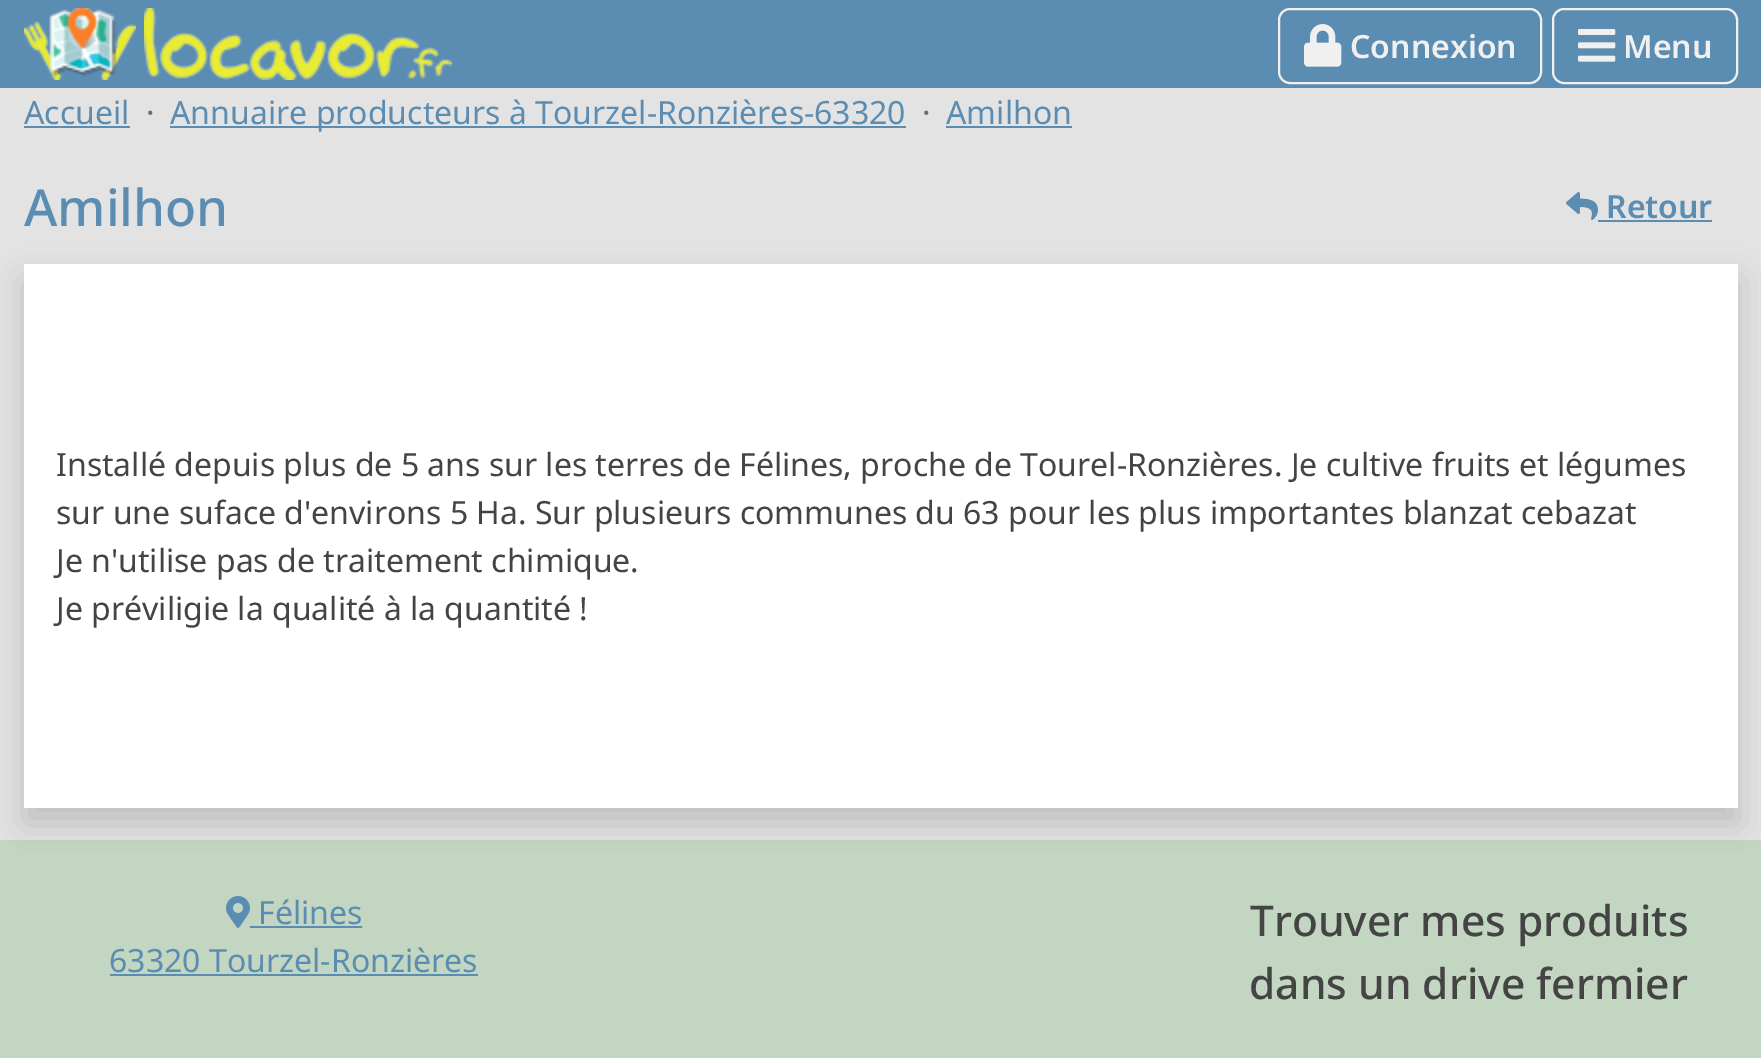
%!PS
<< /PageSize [1761 1058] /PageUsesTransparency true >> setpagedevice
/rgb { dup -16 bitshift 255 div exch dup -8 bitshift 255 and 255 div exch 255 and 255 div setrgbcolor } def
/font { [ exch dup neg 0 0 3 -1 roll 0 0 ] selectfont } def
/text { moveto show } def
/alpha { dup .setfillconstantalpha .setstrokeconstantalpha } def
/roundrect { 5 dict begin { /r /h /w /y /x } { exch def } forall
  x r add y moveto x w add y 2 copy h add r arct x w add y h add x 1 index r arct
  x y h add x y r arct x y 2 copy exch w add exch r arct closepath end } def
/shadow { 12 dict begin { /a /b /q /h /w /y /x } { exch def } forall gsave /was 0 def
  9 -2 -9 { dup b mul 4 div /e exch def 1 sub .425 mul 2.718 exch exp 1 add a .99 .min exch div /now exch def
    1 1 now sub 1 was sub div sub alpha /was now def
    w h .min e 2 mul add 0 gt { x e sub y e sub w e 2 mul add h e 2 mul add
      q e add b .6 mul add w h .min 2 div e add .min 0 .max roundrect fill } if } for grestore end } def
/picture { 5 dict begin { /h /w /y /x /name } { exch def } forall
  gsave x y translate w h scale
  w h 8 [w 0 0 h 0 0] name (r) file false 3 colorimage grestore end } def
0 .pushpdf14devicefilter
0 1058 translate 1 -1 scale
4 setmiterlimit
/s1 { /NotoSans-SemiBold 32 font 16#F0F0F0 rgb } def
/s2 { /NotoSans-Regular 32 font 16#5B8CB1 rgb } def
/s3 { /NotoSans-Regular 32 font 16#6C6C6C rgb } def
/s4 { /NotoSans-Medium 51 font 16#5B8CB1 rgb } def
/s5 { /NotoSans-SemiBold 32 font 16#5B8CB1 rgb } def
/s6 { /NotoSans-Regular 32 font 16#444444 rgb } def
/s7 { /NotoSans-Medium 42.5 font 16#444444 rgb } def
16#E3E3E3 rgb
0 0 1761 1058 rectfill
16#5B8CB1 rgb
0 0 1761 88 rectfill
(pic1.raw) 24 8 112 72 picture
(pic2.raw) 144 8 308 72 picture
16#F0F0F0 rgb
2 setlinewidth
1279 9 262 74 11 roundrect stroke
(pic3.raw) 1304 24 38 43 picture
s1
(Connexion) 1350 58 text
1553 9 184 74 11 roundrect stroke
(pic4.raw) 1578 29 38 33 picture
(Menu) 1623 58 text
s2
(Accueil) 24 124 text
24 126 106 2 rectfill
s3
(·) 146 124 text
16#5B8CB1 rgb
170 126 736 2 rectfill
(Annuaire producteurs à Tourzel-Ronzières-63320) 170 124 text
s3
(·) 922 124 text
s2
(Amilhon) 946 124 text
946 126 126 2 rectfill
s4
(Amilhon) 24 226 text
(pic5.raw) 1566 192 32 28 picture
s5
(Retour) 1606 218 text
1598 220 114 2 rectfill
16#000000 rgb
24 280 1714 544 0 16 0.15 shadow
16#FFFFFF rgb
24 264 1714 544 rectfill
s6
(Installé depuis plus de 5 ans sur les terres de Félines, proche de Tourel-Ronzières. Je cultive fruits et légumes) 56 476 text
(sur une suface d'environs 5 Ha. Sur plusieurs communes du 63 pour les plus importantes blanzat cebazat) 56 524 text
(Je n'utilise pas de traitement chimique.) 56 572 text
(Je préviligie la qualité à la quantité !) 56 620 text
0.25 alpha
16#61B15B rgb
0 840 1761 218 rectfill
1 alpha
(pic6.raw) 226 896 24 32 picture
s2
(Félines) 258 924 text
250 926 112 2 rectfill
(63320 Tourzel-Ronzières) 109 972 text
110 974 368 2 rectfill
s7
(Trouver mes produits) 1250 936 text
(dans un drive fermier) 1249 999 text
.poppdf14devicefilter showpage
